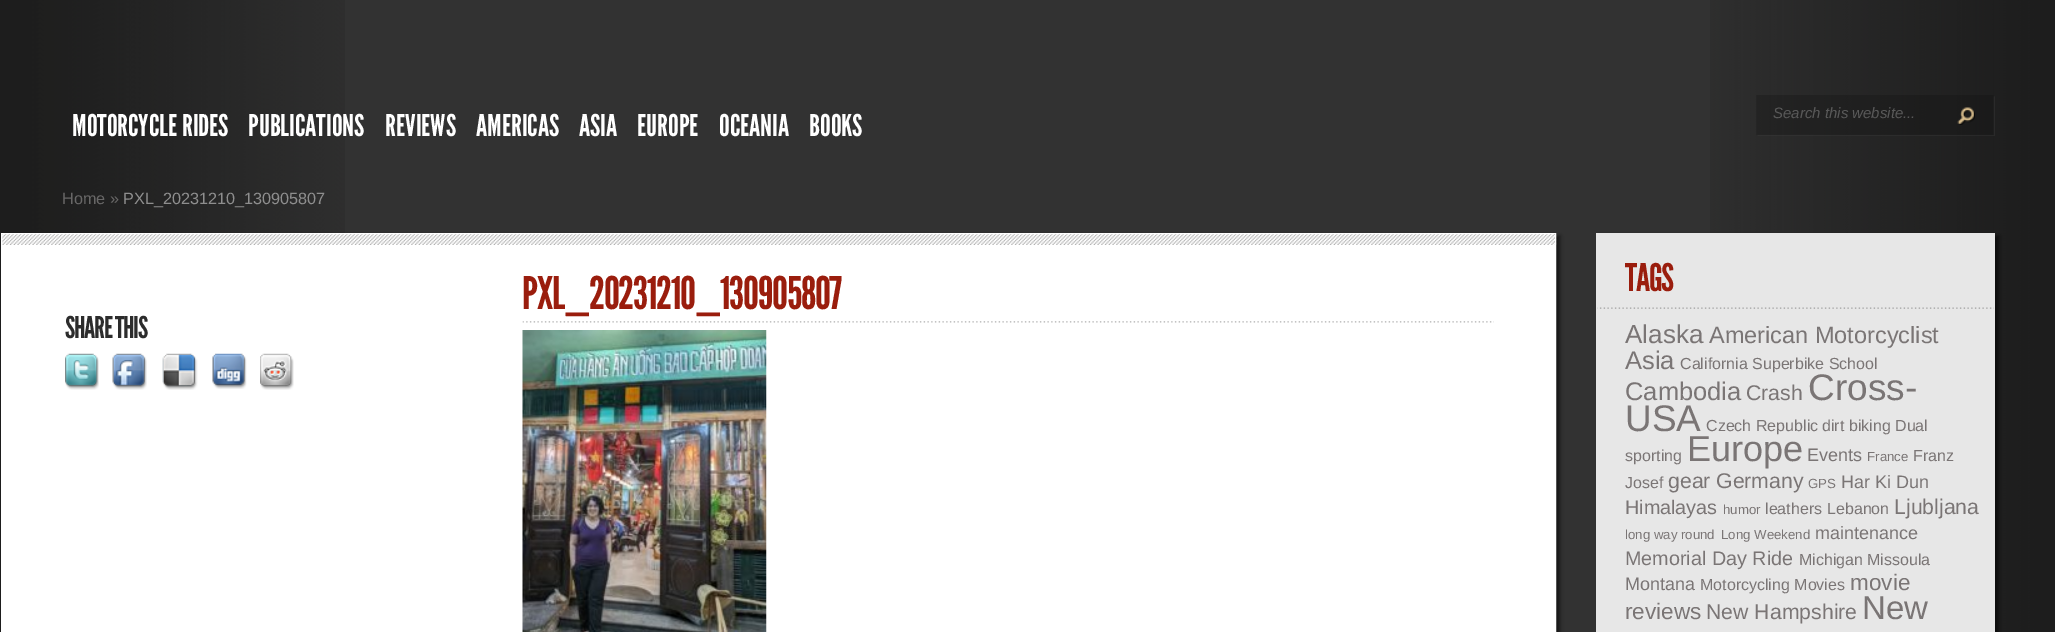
%!PS
<< /PageSize [2055 632] /PageUsesTransparency true >> setpagedevice
/rgb { dup -16 bitshift 255 div exch dup -8 bitshift 255 and 255 div exch 255 and 255 div setrgbcolor } def
/font { [ exch dup neg 0 0 3 -1 roll 0 0 ] selectfont } def
/text { moveto show } def
/alpha { dup .setfillconstantalpha .setstrokeconstantalpha } def
/roundrect { 5 dict begin { /r /h /w /y /x } { exch def } forall
  x r add y moveto x w add y 2 copy h add r arct x w add y h add x 1 index r arct
  x y h add x y r arct x y 2 copy exch w add exch r arct closepath end } def
/shadow { 12 dict begin { /a /b /q /h /w /y /x } { exch def } forall gsave /was 0 def
  9 -2 -9 { dup b mul 4 div /e exch def 1 sub .425 mul 2.718 exch exp 1 add a .99 .min exch div /now exch def
    1 1 now sub 1 was sub div sub alpha /was now def
    w h .min e 2 mul add 0 gt { x e sub y e sub w e 2 mul add h e 2 mul add
      q e add b .6 mul add w h .min 2 div e add .min 0 .max roundrect fill } if } for grestore end } def
/picture { 5 dict begin { /h /w /y /x /name } { exch def } forall
  gsave x y translate w h scale
  w h 8 [w 0 0 h 0 0] name (r) file false 3 colorimage grestore end } def
0 .pushpdf14devicefilter
0 632 translate 1 -1 scale
4 setmiterlimit
/s1 { /LeagueGothic-Regular 30 font 16#FFFFFF rgb } def
/s2 { /LiberationSans-Italic 15 font 16#595959 rgb } def
/s3 { /LiberationSans-Regular 16.25 font 16#686767 rgb } def
/s4 { /LiberationSans-Regular 16.25 font 16#8E8E8E rgb } def
/s5 { /LiberationSans-Regular 26 font 16#7A7575 rgb } def
/s6 { /LiberationSans-Regular 23.5 font 16#7A7575 rgb } def
/s7 { /LiberationSans-Regular 25.5 font 16#7A7575 rgb } def
/s8 { /LiberationSans-Regular 16 font 16#7A7575 rgb } def
/s9 { /LiberationSans-Regular 21.25 font 16#7A7575 rgb } def
/s10 { /LiberationSans-Regular 37 font 16#7A7575 rgb } def
/s11 { /LiberationSans-Regular 36 font 16#7A7575 rgb } def
/s12 { /LiberationSans-Regular 18 font 16#7A7575 rgb } def
/s13 { /LiberationSans-Regular 13.25 font 16#7A7575 rgb } def
/s14 { /LiberationSans-Regular 19.75 font 16#7A7575 rgb } def
/s15 { /LiberationSans-Regular 22.5 font 16#7A7575 rgb } def
/s16 { /LiberationSans-Regular 33 font 16#7A7575 rgb } def
16#323232 rgb
0 0 2055 632 rectfill
(pic1.raw) 0 0 345 632 picture
(pic2.raw) 1710 0 345 632 picture
s1
(MOTORCYCLE RIDES) 72 136 text
(PUBLICATIONS) 248 136 text
(REVIEWS) 385 136 text
(AMERICAS) 476 136 text
(ASIA) 579 136 text
(EUROPE) 637 136 text
(OCEANIA) 719 136 text
(BOOKS) 809 136 text
(pic3.raw) 1756 95 239 41 picture
s2
(Search this website...) 1773 118 text
(pic4.raw) 1957 107 18 18 picture
s3
(Home ») 62 204 text
s4
(PXL_20231210_130905807) 123 204 text
16#000000 rgb
5 236 1555 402 0 2 0.6 shadow
16#FFFFFF rgb
2 234 1553 398 rectfill
(pic5.raw) 2 234 1555 11 picture
1.5 233.5 1554 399 rectstroke
/LeagueGothic-Regular 45 font
16#9A1D0D rgb
522 309 moveto -1.25 0 (PXL_20231210_130905807) ashow
(pic6.raw) 522 321 972 2 picture
(pic7.raw) 522 330 245 302 picture
/LeagueGothic-Regular 30 font
16#2C2C2C rgb
65 338 moveto -1.25 0 (SHARE THIS) ashow
(pic8.raw) 65 353 34 37 picture
(pic9.raw) 112 353 35 37 picture
(pic10.raw) 162 353 36 37 picture
(pic11.raw) 212 353 35 36 picture
(pic12.raw) 260 353 34 37 picture
16#000000 rgb
1600 236 399 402 0 2 0.6 shadow
16#E7E7E7 rgb
1596 233 399 399 rectfill
(pic13.raw) 1597 307 397 2 picture
/LeagueGothic-Regular 38 font
16#9A1D0D rgb
1625 291 moveto -1.25 0 (TAGS) ashow
s5
(Alaska) 1625 343 text
s6
(American Motorcyclist) 1709 343 text
s7
(Asia) 1625 369 text
s8
(California Superbike School) 1680 369 text
s7
(Cambodia) 1625 400 text
s9
(Crash) 1746 400 text
s10
(Cross-) 1808 400 text
(USA) 1625 431 text
s8
(Czech Republic) 1706 431 text
(dirt biking) 1822 431 text
(Dual) 1895 431 text
(sporting) 1625 461 text
s11
(Europe) 1687 461 text
s12
(Events) 1807 461 text
s13
(France) 1867 461 text
s8
(Franz) 1913 461 text
(Josef) 1625 488 text
s9
(gear) 1668 488 text
(Germany) 1716 488 text
s13
(GPS) 1808 488 text
s12
(Har Ki Dun) 1841 488 text
s14
(Himalayas) 1625 514 text
s13
(humor) 1723 514 text
s8
(leathers) 1765 514 text
(Lebanon) 1827 514 text
s9
(Ljubljana) 1894 514 text
s13
(long way round) 1625 539 text
(Long Weekend) 1721 539 text
s12
(maintenance) 1815 539 text
s14
(Memorial Day Ride) 1625 565 text
s8
(Michigan) 1799 565 text
(Missoula) 1867 565 text
s12
(Montana) 1625 590 text
s8
(Motorcycling Movies) 1700 590 text
s15
(movie) 1850 590 text
(reviews) 1625 619 text
s9
(New Hampshire) 1706 619 text
s16
(New) 1862 619 text
.poppdf14devicefilter showpage
